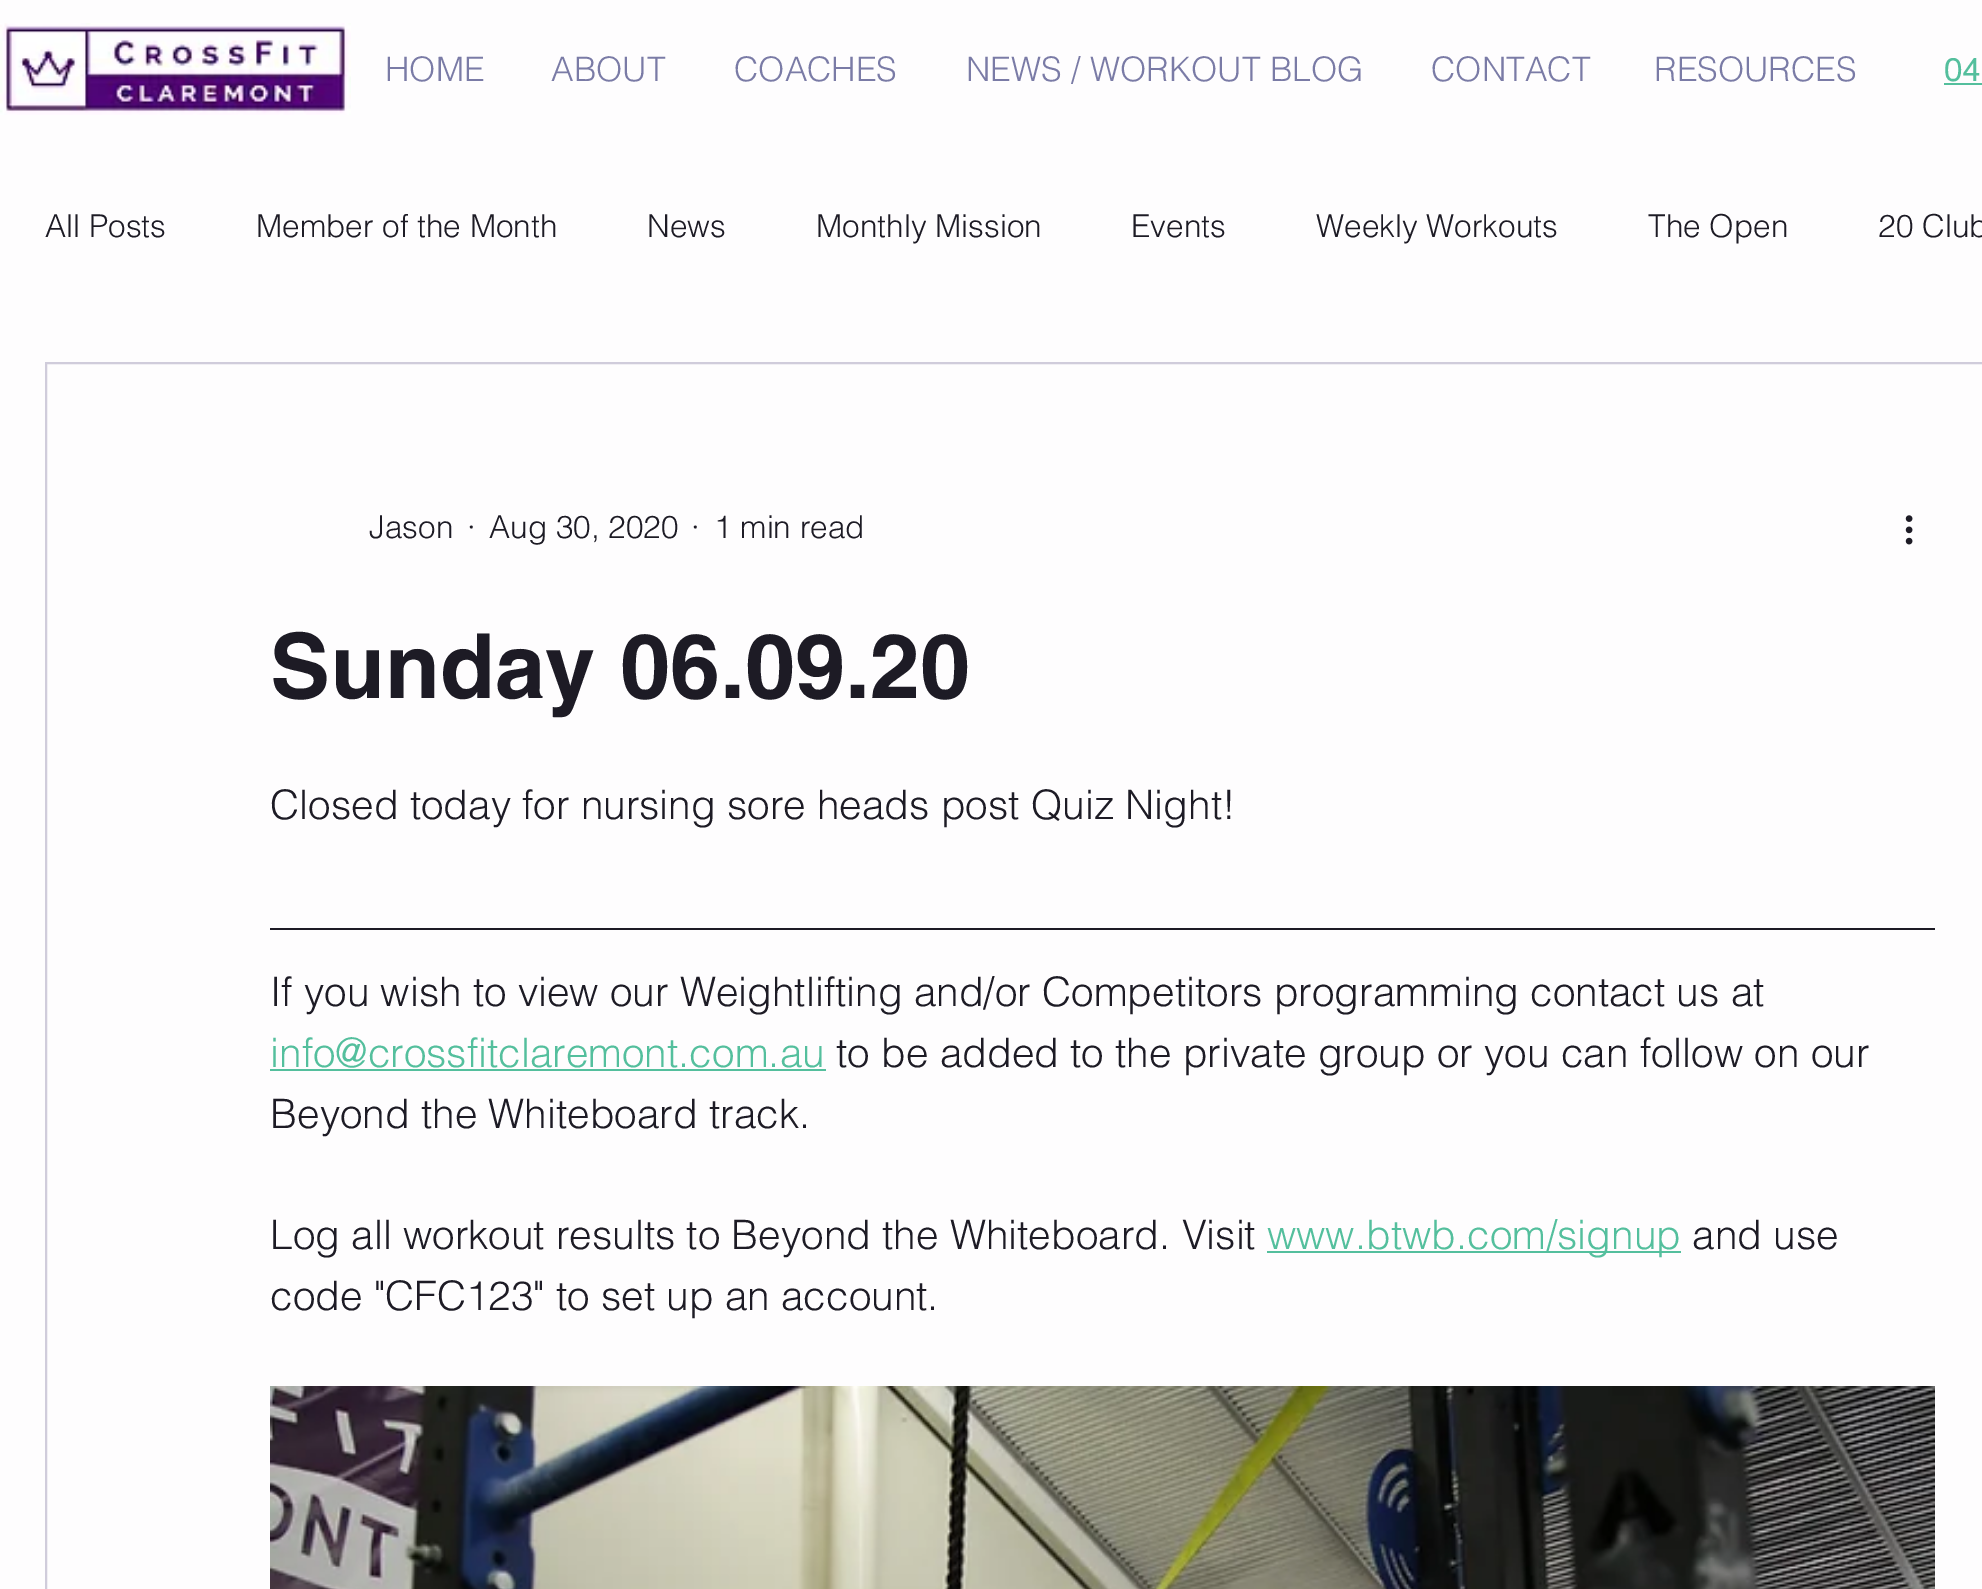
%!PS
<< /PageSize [1982 1589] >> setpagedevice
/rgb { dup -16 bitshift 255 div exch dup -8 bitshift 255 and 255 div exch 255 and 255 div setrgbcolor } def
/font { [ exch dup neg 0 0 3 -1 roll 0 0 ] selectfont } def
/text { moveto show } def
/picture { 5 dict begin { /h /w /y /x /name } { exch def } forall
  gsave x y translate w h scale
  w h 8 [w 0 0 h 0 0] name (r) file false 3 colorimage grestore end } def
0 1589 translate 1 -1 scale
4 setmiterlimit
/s1 { /helvetica-Light 33.75 font 16#7A7BA6 rgb } def
/s2 { /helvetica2-Bold 31.5 font 16#54BF9D rgb } def
/s3 { /helvetica-Light 31.5 font 16#1D1B25 rgb } def
/s4 { /helvetica-Bold 90 font 16#1D1B25 rgb } def
/s5 { /helvetica-Light 40.5 font 16#1D1B25 rgb } def
/s6 { /helvetica-Light 40.5 font 16#54BF9D rgb } def
16#FEFDFE rgb
0 0 1982 1589 rectfill
(pic1.raw) 0 23 351 92 picture
s1
(HOME) 385 81 text
(ABOUT) 551 81 text
(COACHES) 734 81 text
(NEWS / WORKOUT BLOG) 966 81 text
(CONTACT) 1431 81 text
(RESOURCES) 1654 81 text
s2
(04) 1944 81 text
1944 83 38 2 rectfill
s3
(All Posts) 45 237 text
(Member of the Month) 256 237 text
(News) 647 237 text
(Monthly Mission) 816 237 text
(Events) 1131 237 text
(Weekly Workouts) 1316 237 text
(The Open) 1648 237 text
(20 Club) 1878 237 text
16#D0CCDB rgb
2 setlinewidth
46 363 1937 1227 rectstroke
s3
(Jason) 369 538 text
(·) 467 538 text
(Aug 30, 2020) 489 538 text
(·) 691 538 text
(1 min read) 714 538 text
(pic2.raw) 1905 515 8 30 picture
s4
(Sunday 06.09.20) 270 698 text
s5
(Closed today for nursing sore heads post Quiz Night!) 270 819 text
270 928 1665 2 rectfill
(If you wish to view our Weightlifting and/or Competitors programming contact us at) 270 1006 text
s6
(info@crossfitclaremont.com.au) 270 1067 text
270 1069 556 2 rectfill
s5
(to be added to the private group or you can follow on our) 836 1067 text
(Beyond the Whiteboard track.) 270 1128 text
(Log all workout results to Beyond the Whiteboard. Visit) 270 1249 text
16#54BF9D rgb
1267 1251 414 2 rectfill
(www.btwb.com/signup) 1267 1249 text
s5
(and use) 1692 1249 text
(code "CFC123" to set up an account.) 270 1310 text
(pic3.raw) 270 1386 1665 203 picture
showpage
